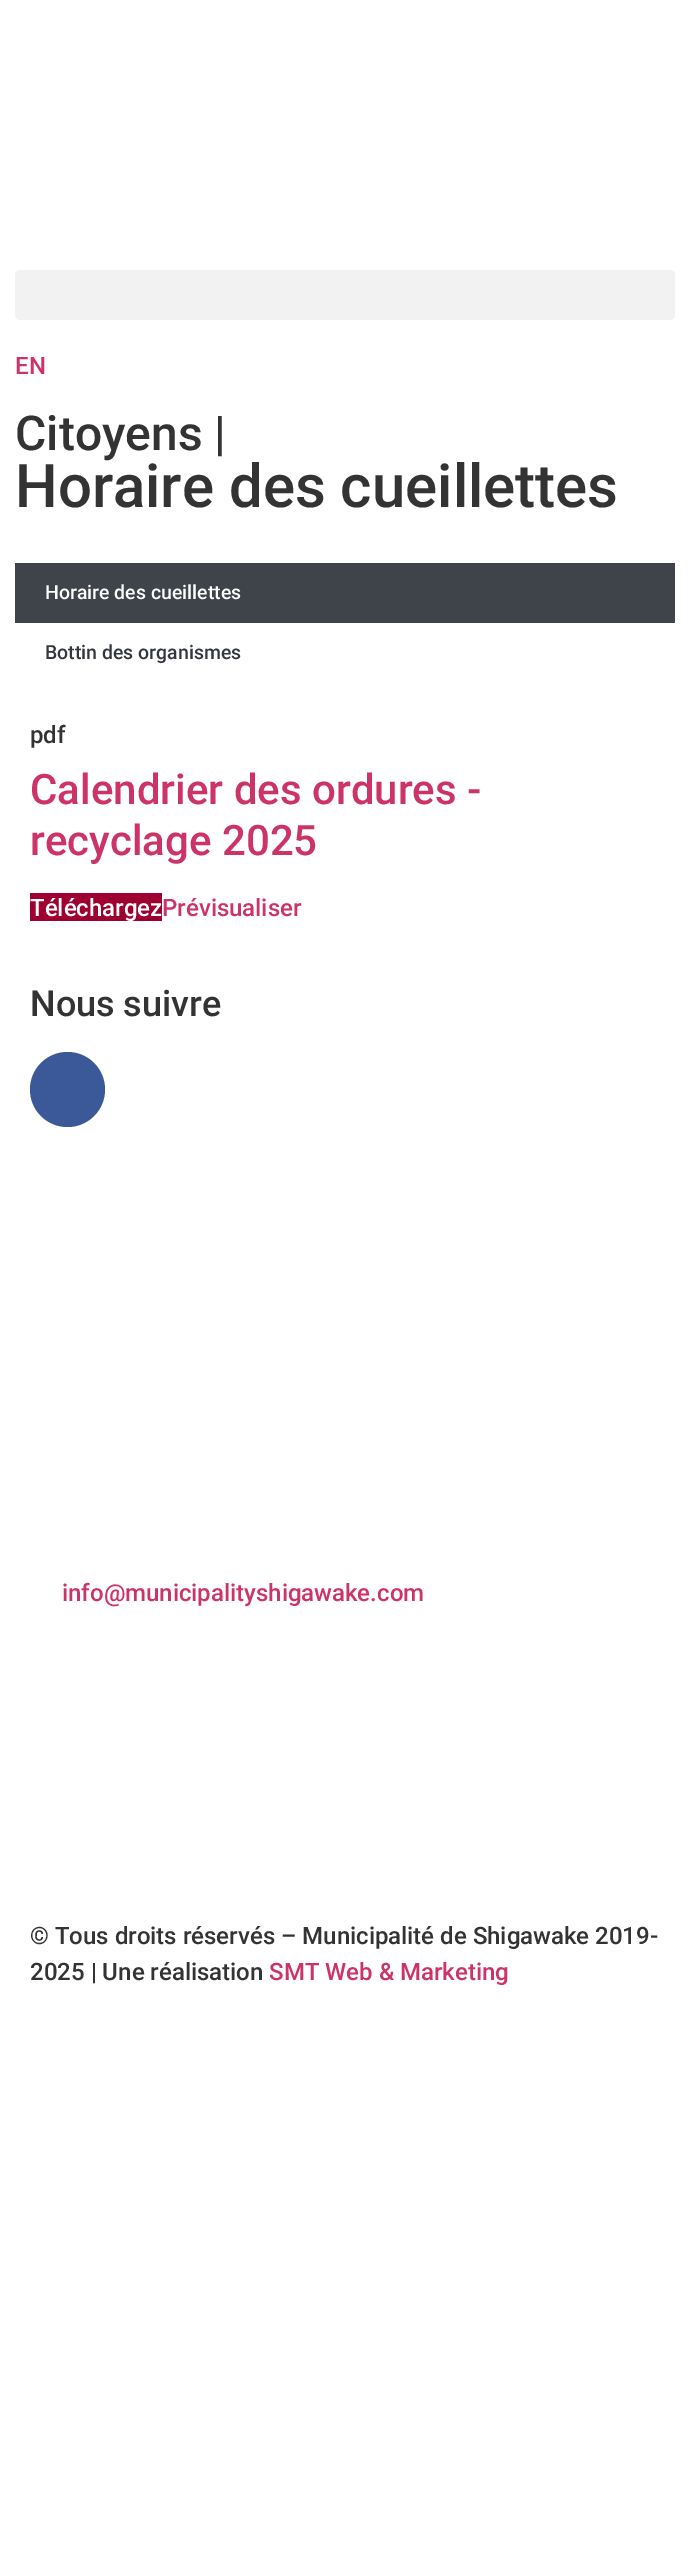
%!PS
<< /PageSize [690 2557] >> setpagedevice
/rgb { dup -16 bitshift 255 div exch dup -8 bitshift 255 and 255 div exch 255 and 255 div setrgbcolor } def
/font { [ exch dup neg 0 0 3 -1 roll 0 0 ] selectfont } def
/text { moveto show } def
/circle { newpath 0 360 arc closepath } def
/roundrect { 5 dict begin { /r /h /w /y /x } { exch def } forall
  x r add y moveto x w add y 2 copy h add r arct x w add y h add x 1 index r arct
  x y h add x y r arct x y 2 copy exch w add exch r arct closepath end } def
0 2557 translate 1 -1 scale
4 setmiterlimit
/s1 { /Roboto-Medium 24 font 16#CC3366 rgb } def
/s2 { /Roboto-Medium 48 font 16#333333 rgb } def
/s3 { /Roboto-Medium 60 font 16#333333 rgb } def
/s4 { /Roboto-Medium 19.5 font 16#FFFFFF rgb } def
/s5 { /Roboto-Medium 19.5 font 16#33373D rgb } def
/s6 { /Roboto-Medium 24 font 16#333333 rgb } def
/s7 { /Roboto-Medium 42 font 16#CC3366 rgb } def
/s8 { /Roboto-Medium 24 font 16#FFFFFF rgb } def
/s9 { /Roboto-Medium 36 font 16#333333 rgb } def
16#FFFFFF rgb
0 0 690 2557 rectfill
16#F2F2F2 rgb
15 270 660 50 5 roundrect fill
s1
(EN) 15 374 text
s2
(Citoyens |) 15 450 text
s3
(Horaire des cueillettes) 15 507 text
16#3F444B rgb
15 563 660 60 rectfill
s4
(Horaire des cueillettes) 45 599 text
s5
(Bottin des organismes) 45 659 text
s6
(pdf) 30 743 text
s7
(Calendrier des ordures -) 30 804 text
(recyclage 2025) 30 855 text
16#9E0032 rgb
30 893 132 28 rectfill
s8
(Téléchargez) 30 916 text
s1
(Prévisualiser) 162 916 text
s9
(Nous suivre) 30 1016 text
16#3B5998 rgb
67.5 1089.5 37.5 circle fill
s1
(info@municipalityshigawake.com) 62 1601 text
s6
(© Tous droits réservés – Municipalité de Shigawake 2019-) 30 1944 text
(2025 | Une réalisation) 30 1980 text
s1
(SMT Web & Marketing) 269 1980 text
showpage
